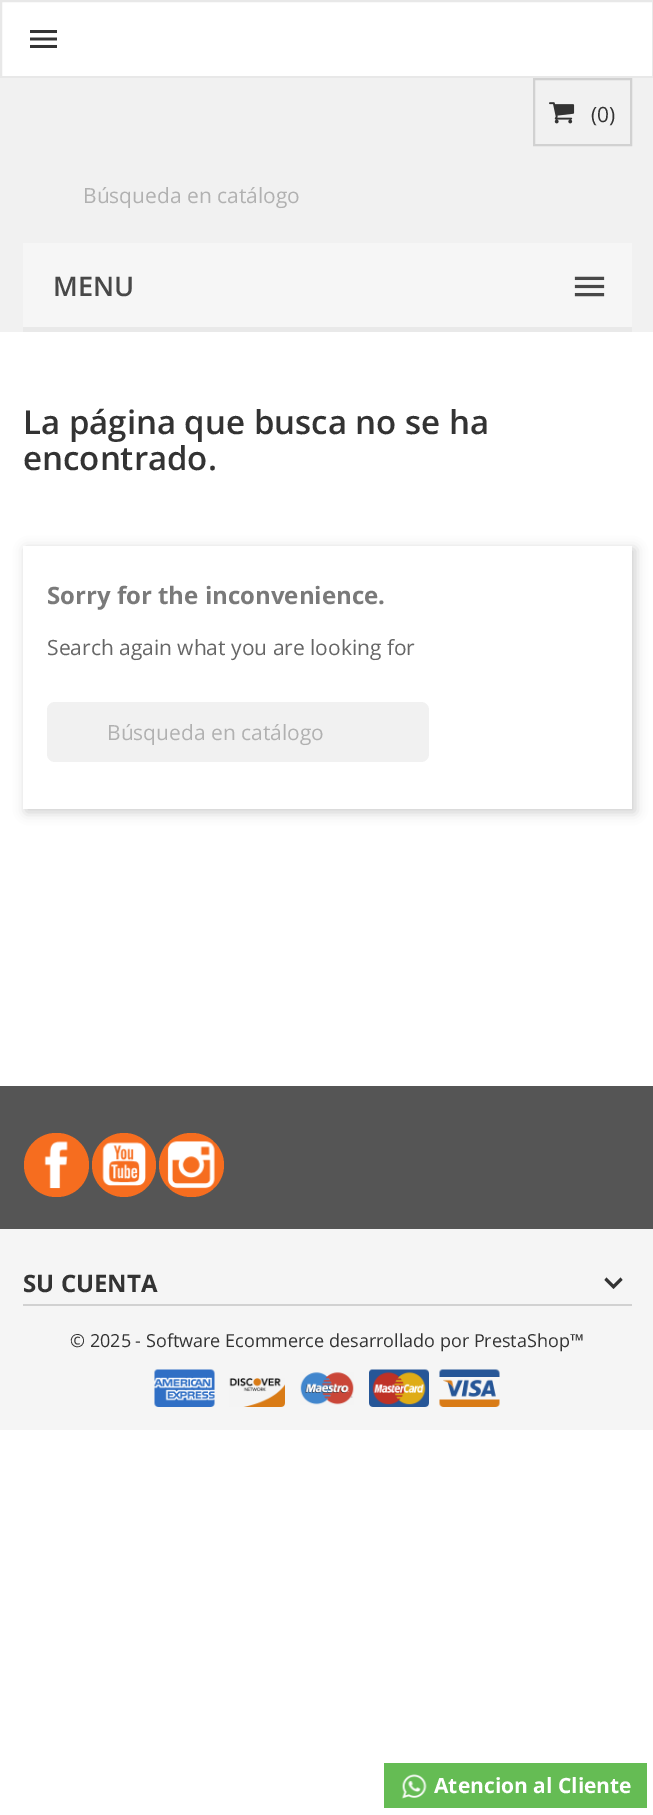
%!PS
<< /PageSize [653 1815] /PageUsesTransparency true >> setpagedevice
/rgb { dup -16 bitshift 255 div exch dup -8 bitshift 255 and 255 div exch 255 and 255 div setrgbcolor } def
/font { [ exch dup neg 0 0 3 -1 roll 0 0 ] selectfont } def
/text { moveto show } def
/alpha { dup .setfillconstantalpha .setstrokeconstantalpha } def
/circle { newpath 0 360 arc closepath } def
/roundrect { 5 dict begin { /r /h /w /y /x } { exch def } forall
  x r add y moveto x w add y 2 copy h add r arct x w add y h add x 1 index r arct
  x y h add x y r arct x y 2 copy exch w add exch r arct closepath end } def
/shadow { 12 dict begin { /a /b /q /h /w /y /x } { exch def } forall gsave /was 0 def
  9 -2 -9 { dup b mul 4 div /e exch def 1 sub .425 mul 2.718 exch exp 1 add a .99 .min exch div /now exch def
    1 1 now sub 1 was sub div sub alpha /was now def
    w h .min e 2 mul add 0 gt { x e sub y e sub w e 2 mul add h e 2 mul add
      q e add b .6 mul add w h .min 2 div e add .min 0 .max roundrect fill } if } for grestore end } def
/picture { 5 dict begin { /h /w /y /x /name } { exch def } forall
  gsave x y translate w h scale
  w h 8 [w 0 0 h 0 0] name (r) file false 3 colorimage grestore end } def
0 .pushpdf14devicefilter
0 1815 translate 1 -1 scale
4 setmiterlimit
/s1 { /OpenSans-Regular 21 font 16#333333 rgb } def
/s2 { /OpenSans-Regular 21 font 16#B1B1B1 rgb } def
/s3 { /OpenSans-SemiBold 27 font 16#484848 rgb } def
/s4 { /OpenSans-SemiBold 33 font 16#333333 rgb } def
/s5 { /OpenSans-Bold 24 font 16#7A7A7A rgb } def
/s6 { /OpenSans-Regular 21 font 16#666666 rgb } def
/s7 { /OpenSans-Bold 24 font 16#333333 rgb } def
/s8 { /OpenSans-Bold 21 font 16#FFFFFF rgb } def
/s9 { /OpenSans-Regular 18 font 16#333333 rgb } def
16#FFFFFF rgb
0 0 653 1815 rectfill
16#E8E8E8 rgb
2 setlinewidth
1 1 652 76 rectstroke
(pic1.raw) 30 30 27 18 picture
16#F1F1F1 rgb
0 78 653 254 rectfill
16#D1D1D1 rgb
534 79 97 66 rectstroke
(pic2.raw) 549 102 26 22 picture
s1
(\(0\)) 591 122 text
s2
(Búsqueda en catálogo) 83 203 text
16#F6F6F6 rgb
23 243 609 84 rectfill
16#E9E9E9 rgb
23 327 609 5 rectfill
s3
(MENU) 53 296 text
(pic3.raw) 574 276 31 21 picture
s4
(La página que busca no se ha) 23 434 text
(encontrado.) 23 470 text
16#000000 rgb
26 549 609 263 0 6 0.2 shadow
16#FFFFFF rgb
23 546 609 263 rectfill
s5
(Sorry for the inconvenience.) 47 604 text
s6
(Search again what you are looking for) 47 655 text
16#F1F1F1 rgb
47 702 382 60 8 roundrect fill
s2
(Búsqueda en catálogo) 107 740 text
16#555555 rgb
0 1086 653 143 rectfill
16#F66D1F rgb
24 1133 65 64 32 roundrect fill
(pic4.raw) 44 1141 24 48 picture
124 1165 32 circle fill
(pic5.raw) 102 1142 44 44 picture
159 1133 65 64 32 roundrect fill
(pic6.raw) 167 1141 48 48 picture
16#F5F5F5 rgb
0 1229 653 201 rectfill
s7
(SU CUENTA) 23 1292 text
606.5 1277.5 moveto 613.5 1284.5 lineto 620.5 1277.5 lineto 622.5 1280 lineto 613.5 1289 lineto 604.5 1280 lineto closepath fill
16#65BC54 rgb
384 1763 263 45 rectfill
(pic7.raw) 401 1774 26 25 picture
s8
(Atencion al Cliente) 434 1793 text
16#D1D1D1 rgb
23 1304 609 2 rectfill
s9
(© 2025 - Software Ecommerce desarrollado por PrestaShop™) 70 1347 text
(pic8.raw) 154 1369 61 38 picture
(pic9.raw) 229 1378 56 29 picture
(pic10.raw) 300 1372 54 33 picture
(pic11.raw) 369 1369 60 38 picture
(pic12.raw) 439 1369 61 38 picture
.poppdf14devicefilter showpage
